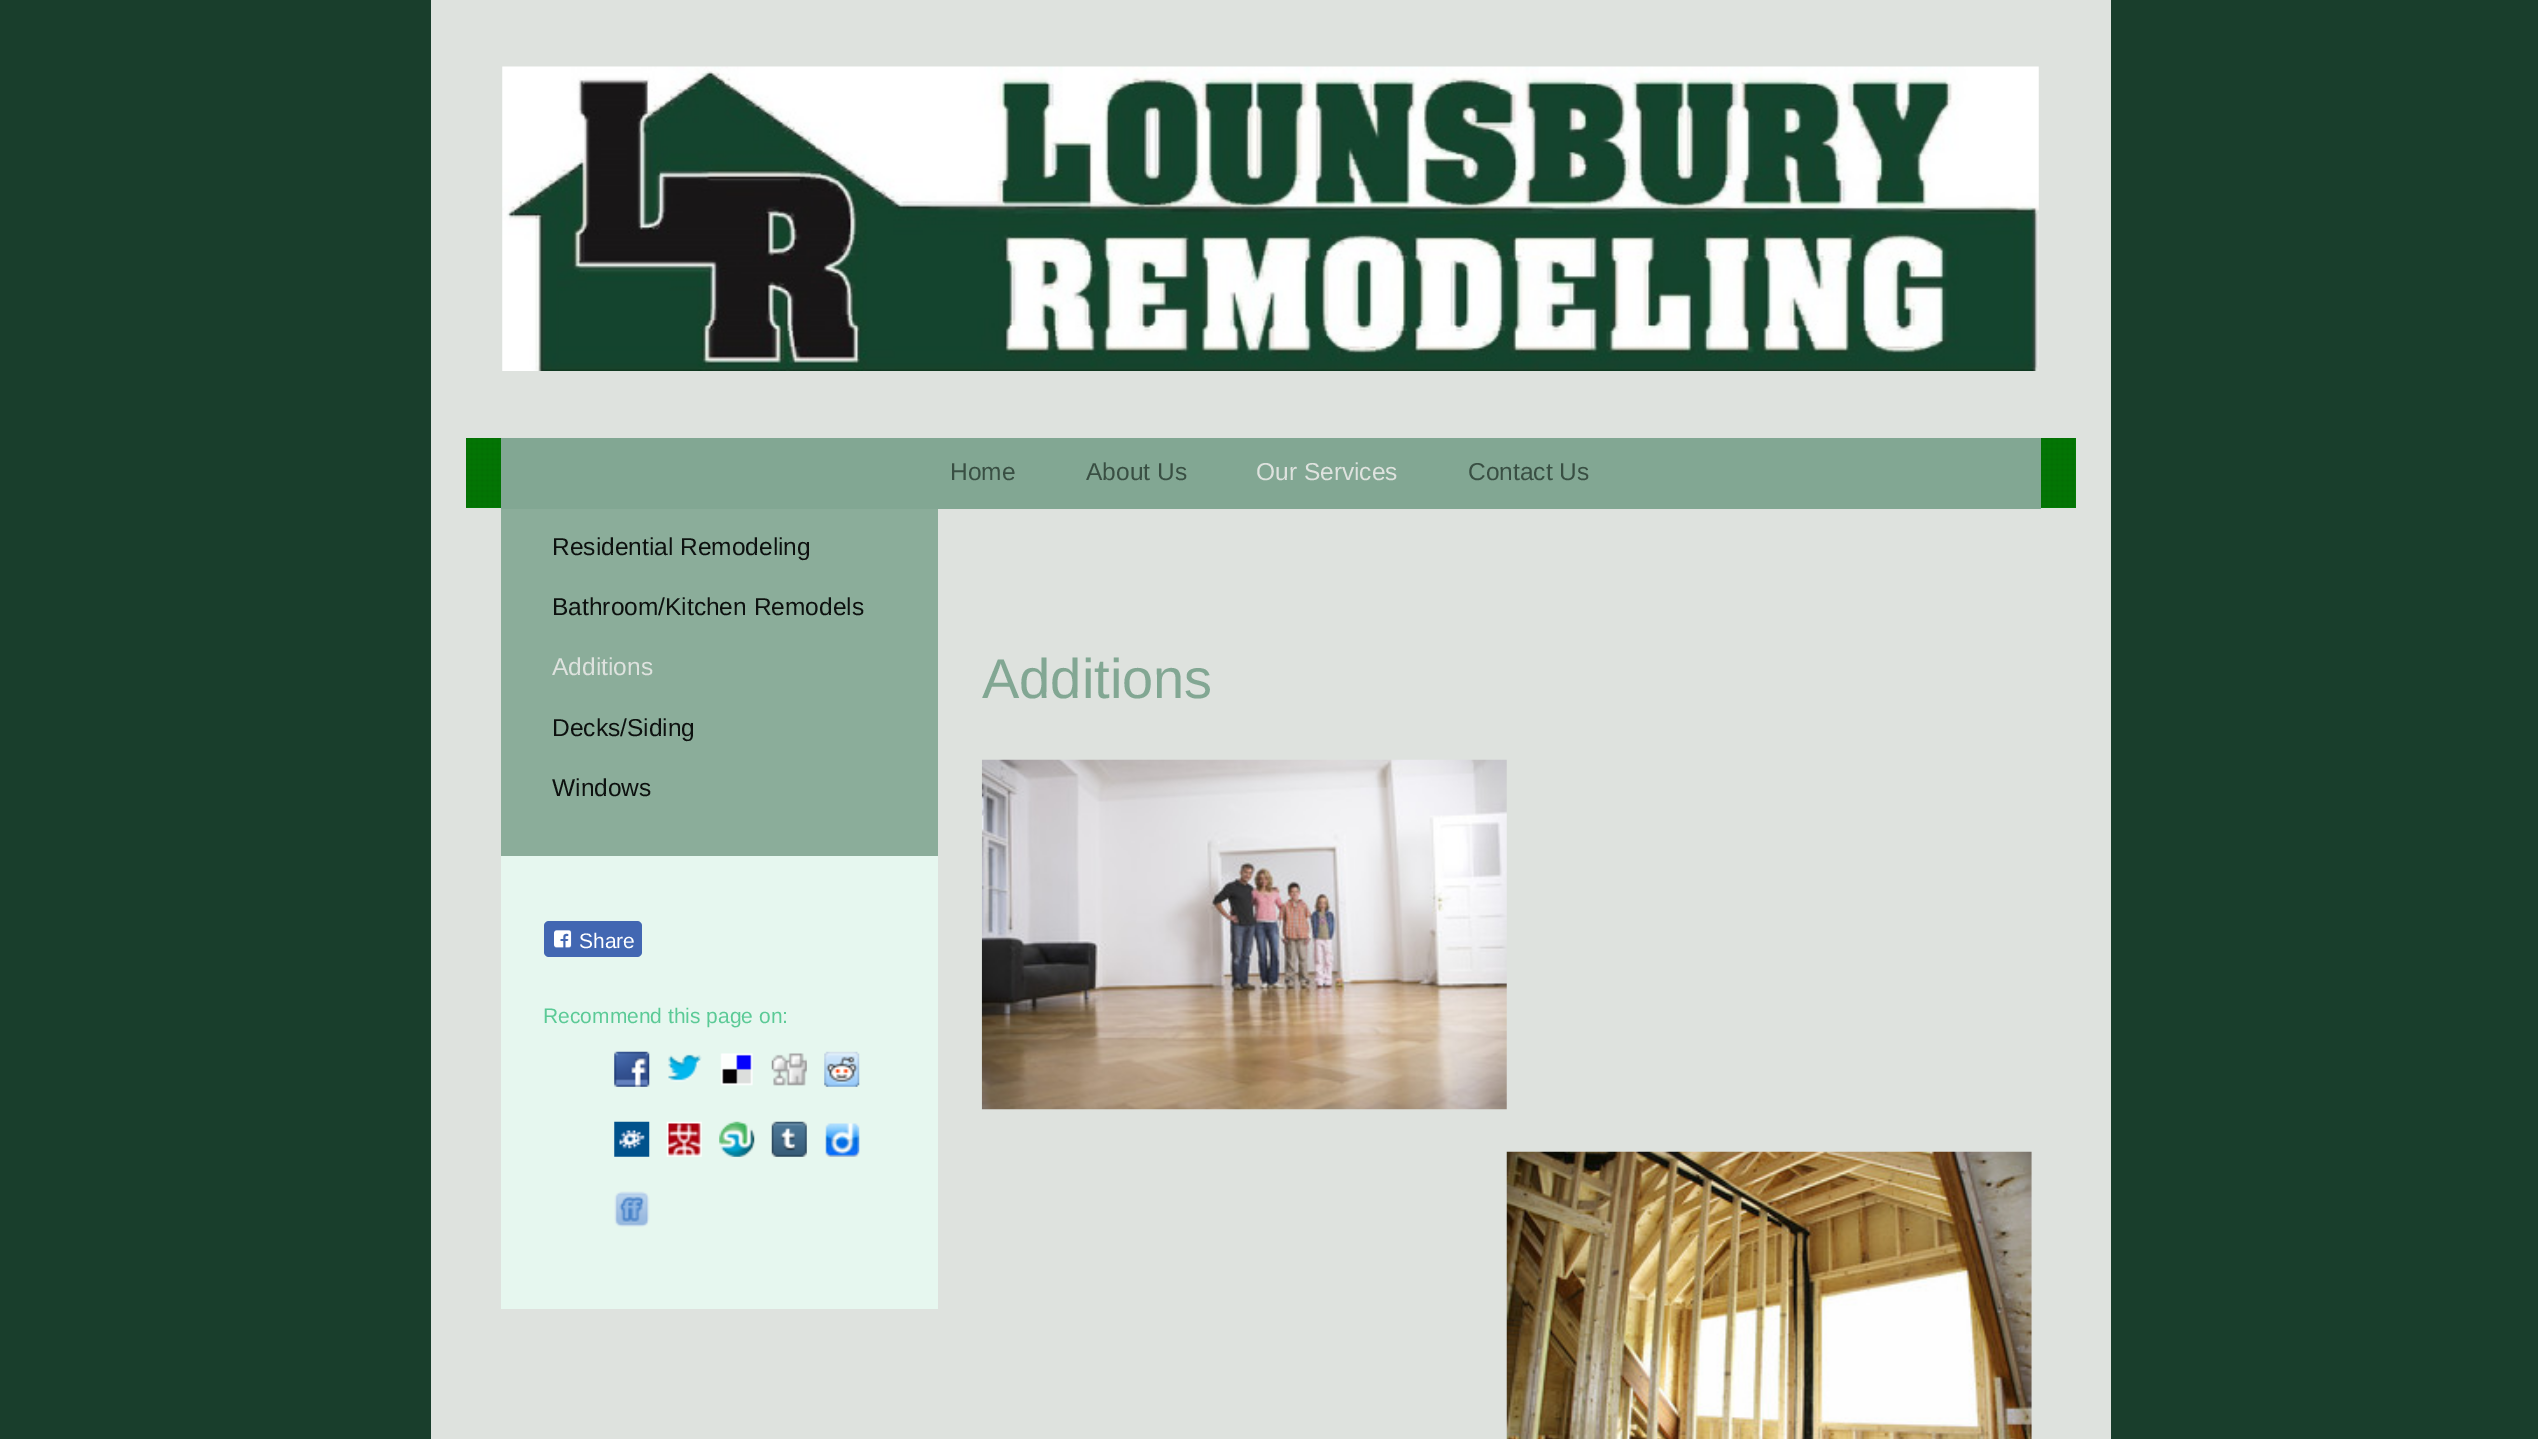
%!PS
<< /PageSize [2538 1439] /PageUsesTransparency true >> setpagedevice
/rgb { dup -16 bitshift 255 div exch dup -8 bitshift 255 and 255 div exch 255 and 255 div setrgbcolor } def
/font { [ exch dup neg 0 0 3 -1 roll 0 0 ] selectfont } def
/text { moveto show } def
/alpha { dup .setfillconstantalpha .setstrokeconstantalpha } def
/roundrect { 5 dict begin { /r /h /w /y /x } { exch def } forall
  x r add y moveto x w add y 2 copy h add r arct x w add y h add x 1 index r arct
  x y h add x y r arct x y 2 copy exch w add exch r arct closepath end } def
/picture { 5 dict begin { /h /w /y /x /name } { exch def } forall
  gsave x y translate w h scale
  w h 8 [w 0 0 h 0 0] name (r) file false 3 colorimage grestore end } def
0 .pushpdf14devicefilter
0 1439 translate 1 -1 scale
4 setmiterlimit
/s1 { /LiberationSans-Regular 24.5 font 16#394F43 rgb } def
/s2 { /LiberationSans-Regular 24.5 font 16#DEE2DE rgb } def
/s3 { /LiberationSans-Regular 24.5 font 16#0D110F rgb } def
/s4 { /LiberationSans-Regular 21 font 16#FFFFFF rgb } def
/s5 { /LiberationSans-Regular 21 font 16#5BCA96 rgb } def
/s6 { /LiberationSans-Regular 56 font 16#82A793 rgb } def
16#193E2C rgb
0 0 2538 1439 rectfill
16#DEE2DE rgb
431 0 1680 1439 rectfill
(pic1.raw) 502 66 1537 305 picture
16#037A04 rgb
466 438 1610 70 rectfill
(pic2.raw) 466 438 1609 69 picture
16#82A793 rgb
501 438 1540 71 rectfill
s1
(Home) 950 480 text
(About Us) 1086 480 text
s2
(Our Services) 1256 480 text
s1
(Contact Us) 1468 480 text
0.9 alpha
16#82A793 rgb
501 509 437 347 rectfill
1 alpha
s3
(Residential Remodeling) 552 555 text
(Bathroom/Kitchen Remodels) 552 615 text
s2
(Additions) 552 675 text
s3
(Decks/Siding) 552 736 text
(Windows) 552 796 text
16#E6F7EF rgb
501 856 437 453 rectfill
16#4267B2 rgb
544 921 98 36 5 roundrect fill
(pic3.raw) 554 930 18 18 picture
s4
(Share) 579 948 text
s5
(Recommend this page on:) 543 1023 text
(pic4.raw) 614 1051 36 36 picture
(pic5.raw) 668 1054 34 28 picture
(pic6.raw) 720 1053 33 33 picture
(pic7.raw) 771 1053 36 33 picture
(pic8.raw) 824 1051 36 36 picture
(pic9.raw) 614 1121 36 36 picture
(pic10.raw) 666 1121 36 36 picture
(pic11.raw) 719 1121 36 36 picture
(pic12.raw) 771 1121 36 36 picture
(pic13.raw) 825 1123 35 34 picture
(pic14.raw) 614 1191 36 36 picture
s6
(Additions) 982 698 text
(pic15.raw) 981 759 526 351 picture
(pic16.raw) 1506 1151 526 288 picture
.poppdf14devicefilter showpage
